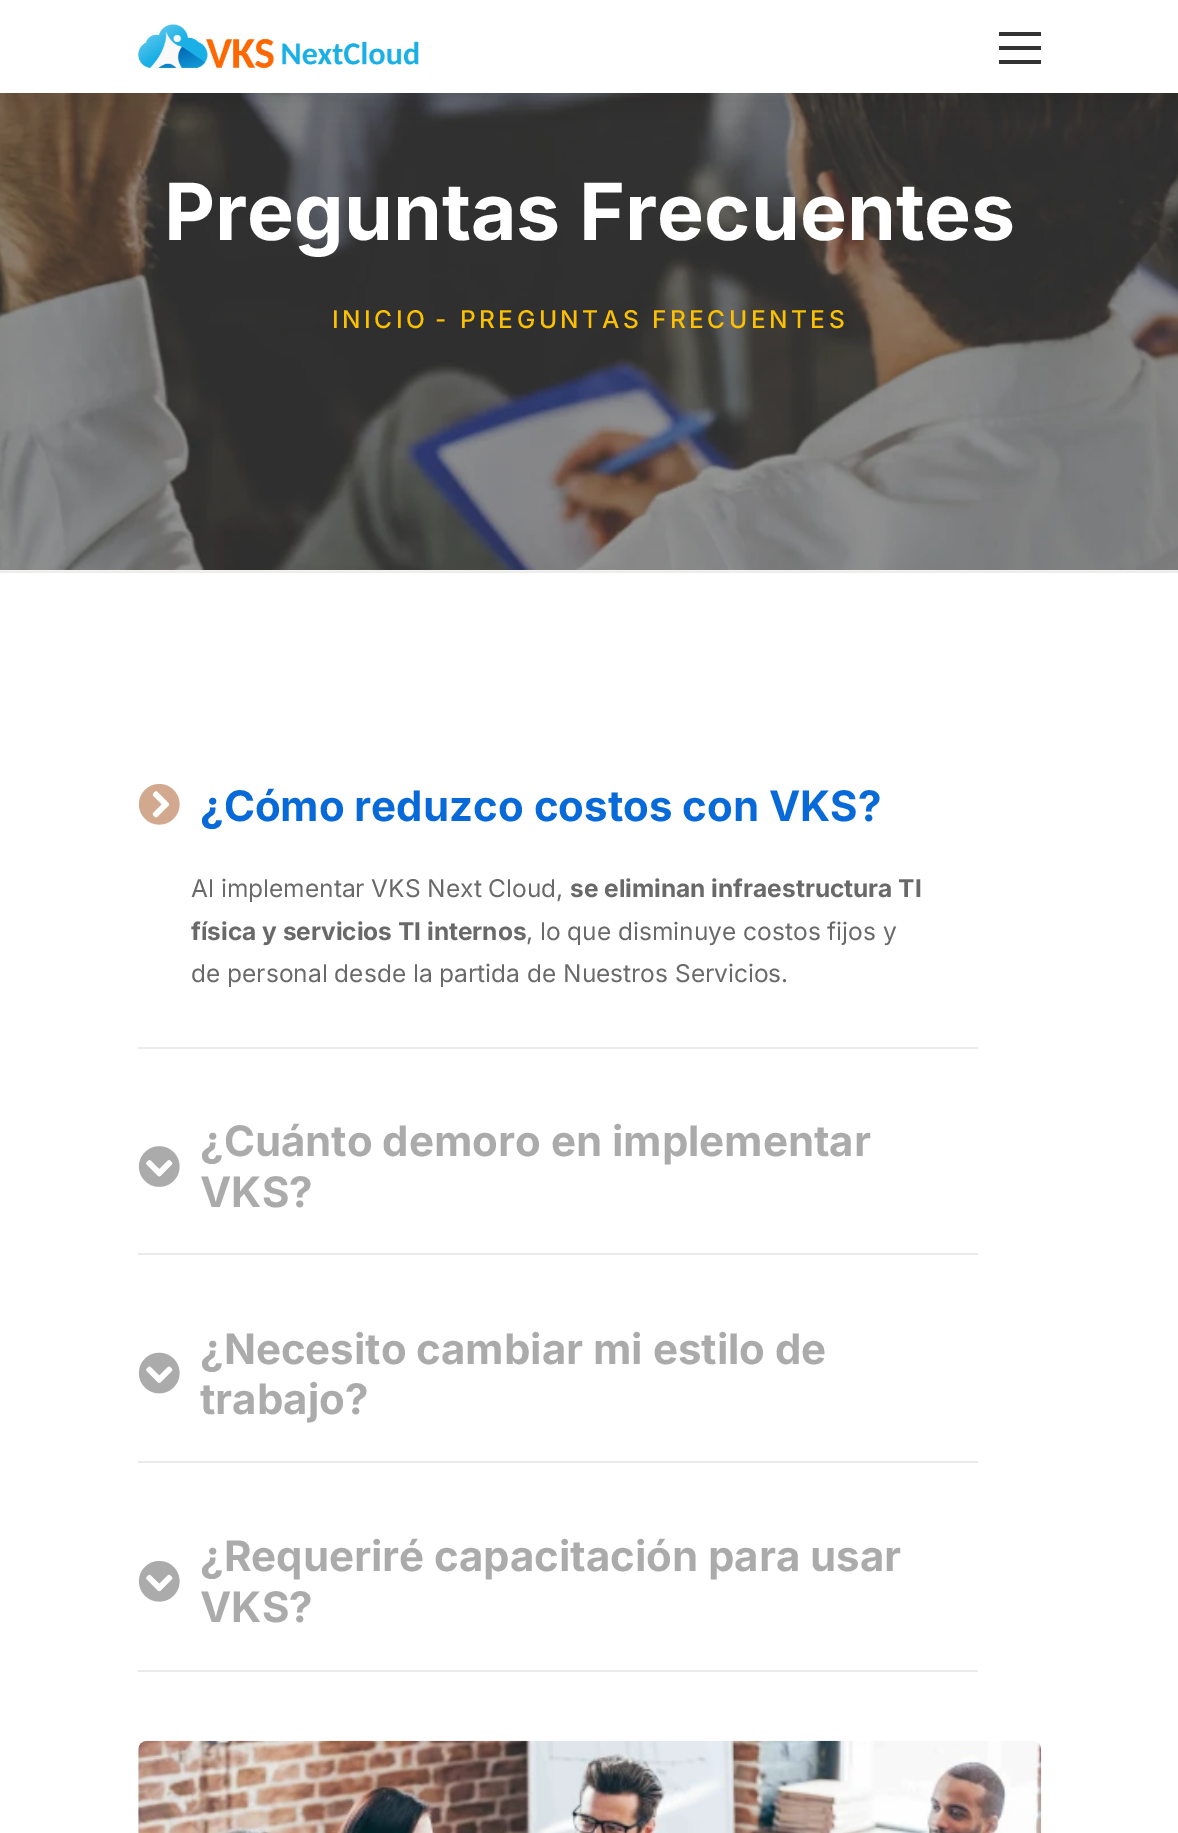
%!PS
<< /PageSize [1178 1833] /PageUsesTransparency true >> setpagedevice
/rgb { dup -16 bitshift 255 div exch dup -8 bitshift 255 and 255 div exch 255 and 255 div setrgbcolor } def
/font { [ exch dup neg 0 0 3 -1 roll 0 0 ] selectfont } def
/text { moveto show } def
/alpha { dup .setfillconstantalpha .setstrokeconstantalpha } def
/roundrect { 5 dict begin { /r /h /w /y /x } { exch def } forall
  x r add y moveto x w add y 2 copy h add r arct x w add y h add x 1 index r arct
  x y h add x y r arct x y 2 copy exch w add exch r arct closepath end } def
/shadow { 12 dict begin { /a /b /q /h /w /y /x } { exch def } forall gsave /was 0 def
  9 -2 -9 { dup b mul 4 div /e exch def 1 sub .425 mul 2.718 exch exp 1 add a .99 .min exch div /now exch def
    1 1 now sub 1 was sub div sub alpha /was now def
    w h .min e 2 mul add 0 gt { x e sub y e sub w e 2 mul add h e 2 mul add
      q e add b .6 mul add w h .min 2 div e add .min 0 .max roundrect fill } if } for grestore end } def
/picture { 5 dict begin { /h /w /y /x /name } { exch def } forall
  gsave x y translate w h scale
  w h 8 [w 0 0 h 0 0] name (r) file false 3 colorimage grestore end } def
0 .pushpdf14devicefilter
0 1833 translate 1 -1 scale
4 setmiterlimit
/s1 { /Inter-Bold 78.75 font 16#FFFFFF rgb } def
/s2 { /Inter-Bold 42 font 16#086AD8 rgb } def
/s3 { /Inter-Regular 24.5 font 16#696969 rgb } def
/s4 { /Inter-Bold 24.5 font 16#696969 rgb } def
/s5 { /Inter-Bold 42 font 16#ABABAB rgb } def
16#FFFFFF rgb
0 0 1178 1833 rectfill
(pic2.raw) 0 93 1178 477 picture
16#000000 rgb
0 14 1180 93 0 17.5 0.1 shadow
16#FFFFFF rgb
0 0 1178 93 rectfill
(pic1.raw) 138 24 281 45 picture
16#333333 rgb
999 46 42 4 rectfill
999 32 42 4 rectfill
999 60 42 4 rectfill
16#F6F2ED rgb
0 570 1178 1 rectfill
s1
(Preguntas Frecuentes) 164 240 text
/Inter-Medium 24.5 font
16#FCC002 rgb
332 328 moveto 3.5 0 (INICIO) ashow
435 328 moveto 3.5 0 (- PREGUNTAS FRECUENTES) ashow
16#EDEDED rgb
0 571 1178 2 rectfill
16#EBEBEB rgb
138 1047 840 2 rectfill
(pic3.raw) 138 784 42 41 picture
s2
(¿Cómo reduzco costos con VKS?) 200 821 text
s3
(Al implementar VKS Next Cloud,) 191 897 text
s4
(se eliminan infraestructura TI) 570 897 text
(física y servicios TI internos) 191 940 text
s3
(, lo que disminuye costos fijos y) 526 940 text
(de personal desde la partida de Nuestros Servicios.) 191 982 text
16#EBEBEB rgb
138 1253 840 2 rectfill
(pic4.raw) 138 1146 42 41 picture
s5
(¿Cuánto demoro en implementar) 200 1156 text
(VKS?) 200 1207 text
16#EBEBEB rgb
138 1461 840 2 rectfill
(pic5.raw) 138 1352 42 42 picture
s5
(¿Necesito cambiar mi estilo de) 200 1364 text
(trabajo?) 200 1414 text
16#EBEBEB rgb
138 1670 840 2 rectfill
(pic6.raw) 138 1561 42 41 picture
s5
(¿Requeriré capacitación para usar) 200 1571 text
(VKS?) 200 1622 text
(pic7.raw) 138 1740 904 93 picture
.poppdf14devicefilter showpage
